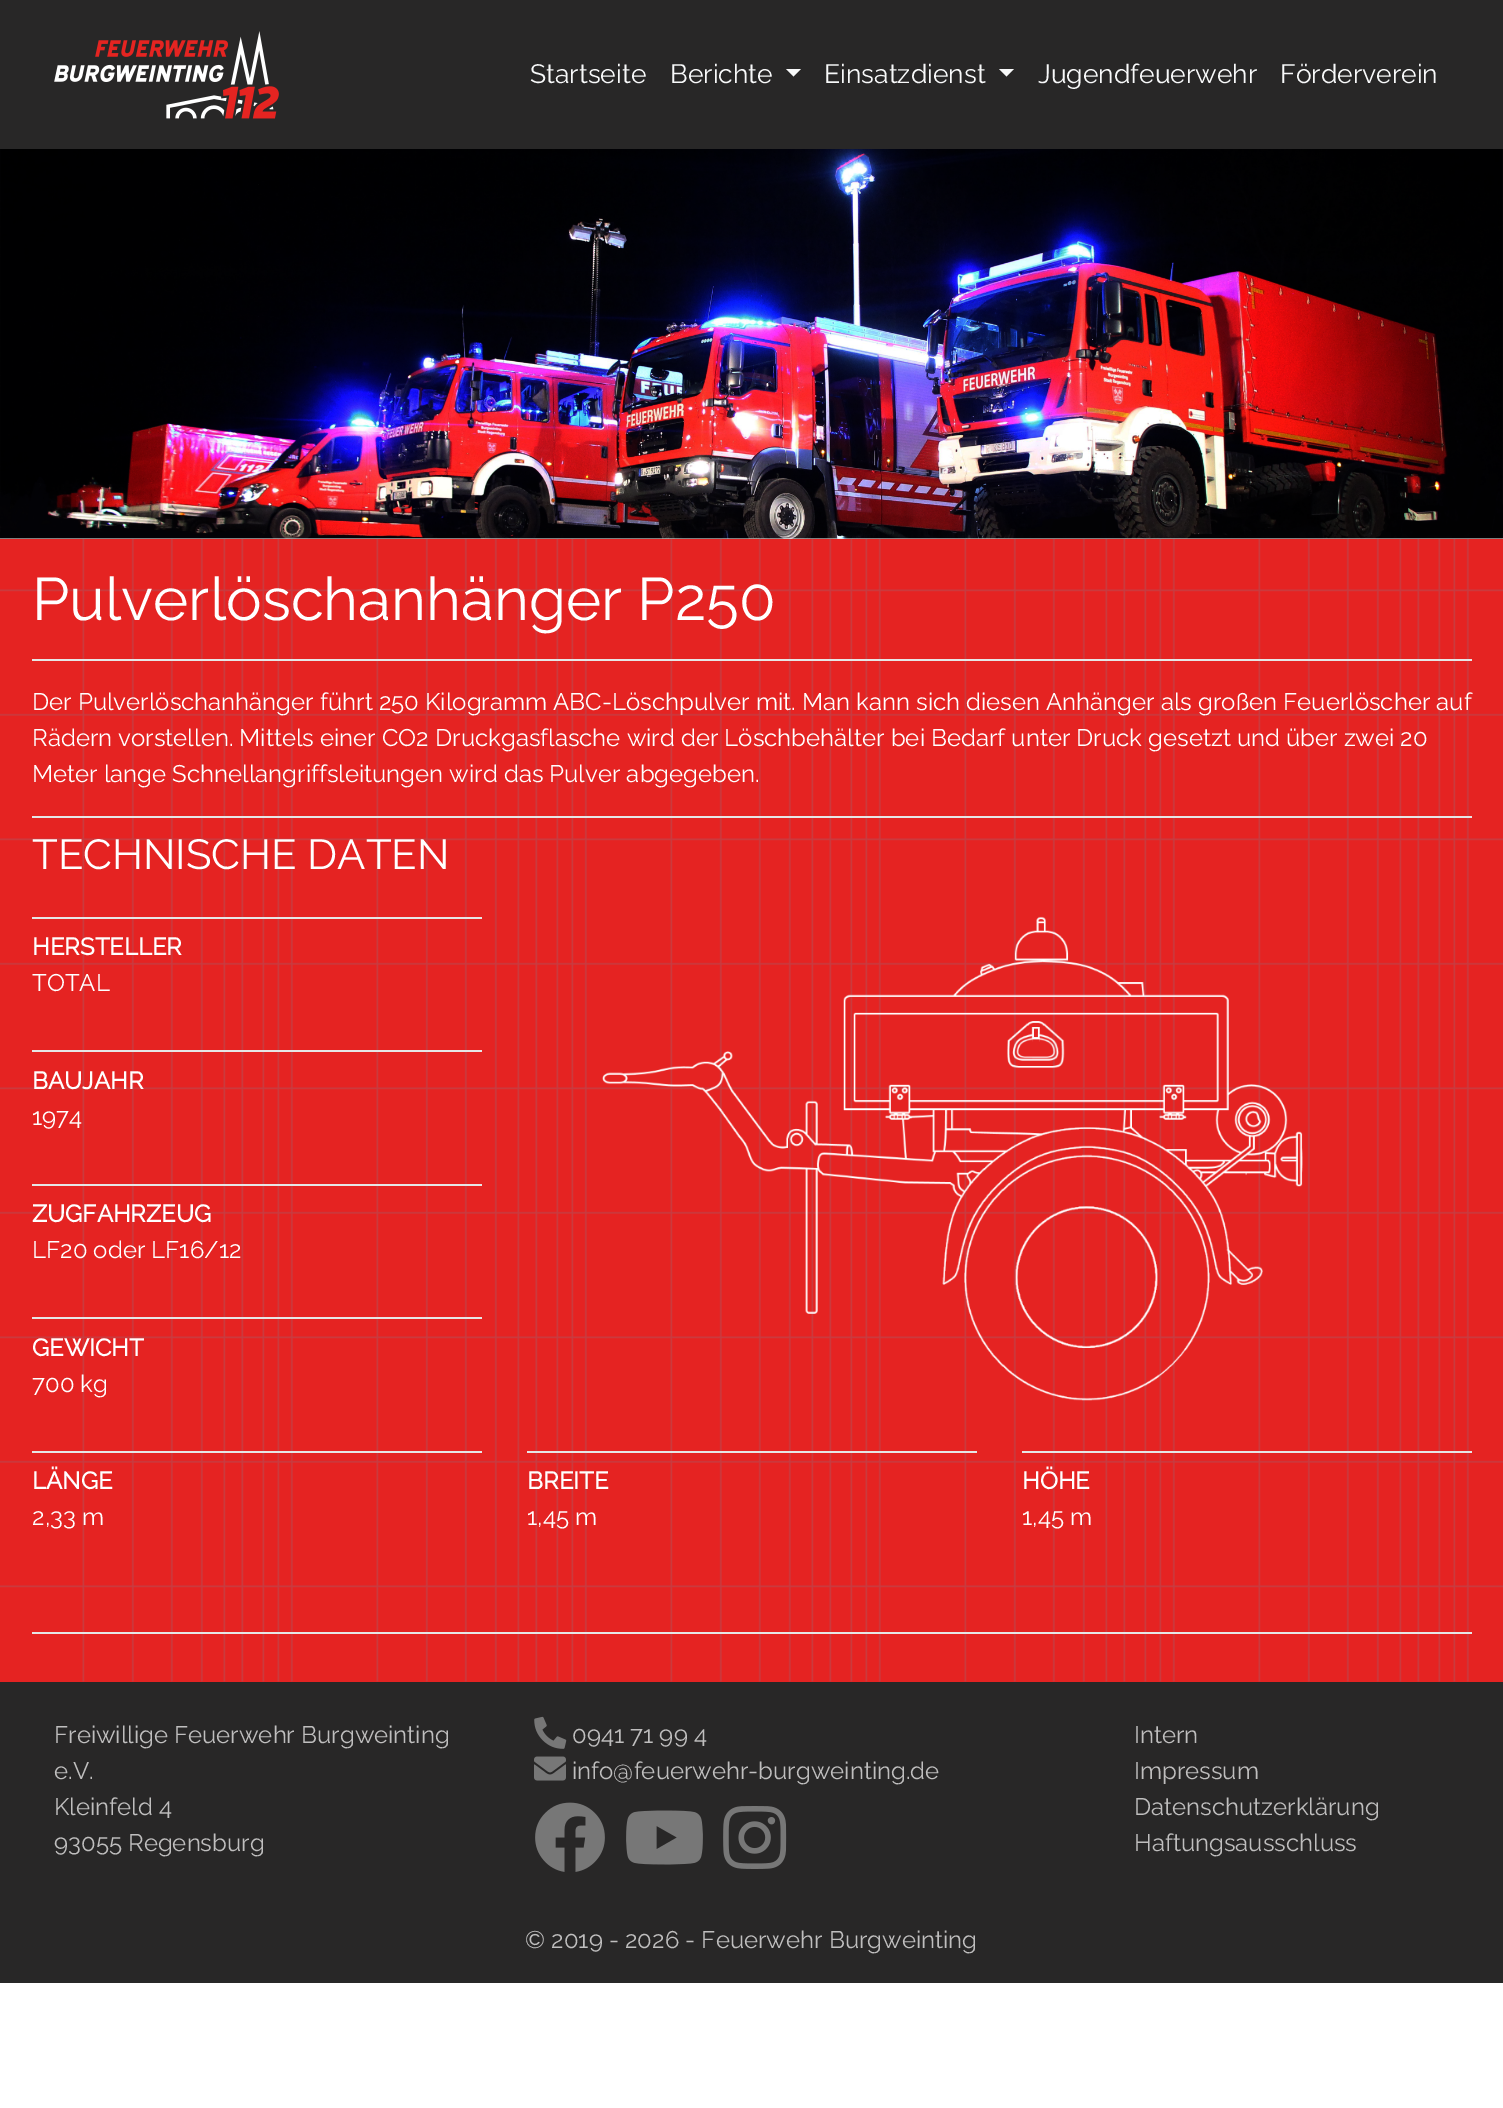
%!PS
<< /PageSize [1503 2108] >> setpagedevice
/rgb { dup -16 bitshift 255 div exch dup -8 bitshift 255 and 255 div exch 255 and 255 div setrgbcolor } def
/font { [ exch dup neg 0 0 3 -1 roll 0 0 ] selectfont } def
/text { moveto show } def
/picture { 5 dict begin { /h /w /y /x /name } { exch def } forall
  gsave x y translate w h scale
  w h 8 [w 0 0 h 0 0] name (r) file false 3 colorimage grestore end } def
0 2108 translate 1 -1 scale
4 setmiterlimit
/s1 { /Raleway-Thin 26.5 font 16#F8F9FA rgb } def
/s2 { /Raleway-Thin 60 font 16#FFFFFF rgb } def
/s3 { /Raleway-Thin 24 font 16#FFFFFF rgb } def
/s4 { /Raleway-Thin 42 font 16#FFFFFF rgb } def
/s5 { /Raleway-Bold 24 font 16#FFFFFF rgb } def
/s6 { /Raleway-Thin 24 font 16#BFBEBE rgb } def
16#FFFFFF rgb
0 0 1503 2108 rectfill
16#282727 rgb
0 0 1503 149 rectfill
(pic1.raw) 54 31 225 88 picture
s1
(Startseite) 530 83 text
(Berichte) 670 83 text
786 69 moveto 801 69 lineto 793.5 76.5 lineto closepath fill
(Einsatzdienst) 824 83 text
999 69 moveto 1014 69 lineto 1006.5 76.5 lineto closepath fill
(Jugendfeuerwehr) 1038 83 text
(Förderverein) 1280 83 text
(pic2.raw) 0 149 1503 390 picture
16#E52322 rgb
0 539 1503 1143 rectfill
(pic3.raw) 0 539 1503 1143 picture
s2
(Pulverlöschanhänger P250) 32 620 text
16#E6E6E6 rgb
32 659 1440 2 rectfill
s3
(Der Pulverlöschanhänger führt 250 Kilogramm ABC-Löschpulver mit. Man kann sich diesen Anhänger als großen Feuerlöscher auf) 32 710 text
(Rädern vorstellen. Mittels einer CO2 Druckgasflasche wird der Löschbehälter bei Bedarf unter Druck gesetzt und über zwei 20) 32 746 text
(Meter lange Schnellangriffsleitungen wird das Pulver abgegeben.) 32 782 text
16#E6E6E6 rgb
32 816 1440 2 rectfill
s4
(TECHNISCHE DATEN) 32 869 text
16#E6E6E6 rgb
32 917 450 2 rectfill
s5
(HERSTELLER) 32 955 text
s3
(TOTAL) 32 991 text
16#E6E6E6 rgb
32 1050 450 2 rectfill
s5
(BAUJAHR) 32 1089 text
s3
(1974) 32 1125 text
16#E6E6E6 rgb
32 1184 450 2 rectfill
s5
(ZUGFAHRZEUG) 32 1222 text
s3
(LF20 oder LF16/12) 32 1258 text
16#E6E6E6 rgb
32 1317 450 2 rectfill
s5
(GEWICHT) 32 1356 text
s3
(700 kg) 32 1392 text
(pic4.raw) 602 916 701 485 picture
16#E6E6E6 rgb
32 1451 450 2 rectfill
s5
(LÄNGE) 32 1489 text
s3
(2,33 m) 32 1525 text
16#E6E6E6 rgb
527 1451 450 2 rectfill
s5
(BREITE) 527 1489 text
s3
(1,45 m) 527 1525 text
16#E6E6E6 rgb
1022 1451 450 2 rectfill
s5
(HÖHE) 1022 1489 text
s3
(1,45 m) 1022 1525 text
16#E6E6E6 rgb
32 1632 1440 2 rectfill
16#282727 rgb
0 1682 1503 301 rectfill
s6
(Freiwillige Feuerwehr Burgweinting) 54 1743 text
(e.V.) 54 1779 text
(Kleinfeld 4) 54 1815 text
(93055 Regensburg) 54 1851 text
(pic5.raw) 534 1716 33 33 picture
(0941 71 99 4) 572 1743 text
(pic6.raw) 534 1756 32 25 picture
(info@feuerwehr-burgweinting.de) 572 1779 text
(pic7.raw) 535 1802 70 70 picture
(pic8.raw) 626 1810 77 55 picture
(pic9.raw) 723 1806 64 63 picture
(Intern) 1134 1743 text
(Impressum) 1134 1779 text
(Datenschutzerklärung) 1134 1815 text
(Haftungsausschluss) 1134 1851 text
(© 2019 - 2026 - Feuerwehr Burgweinting) 525 1948 text
showpage
